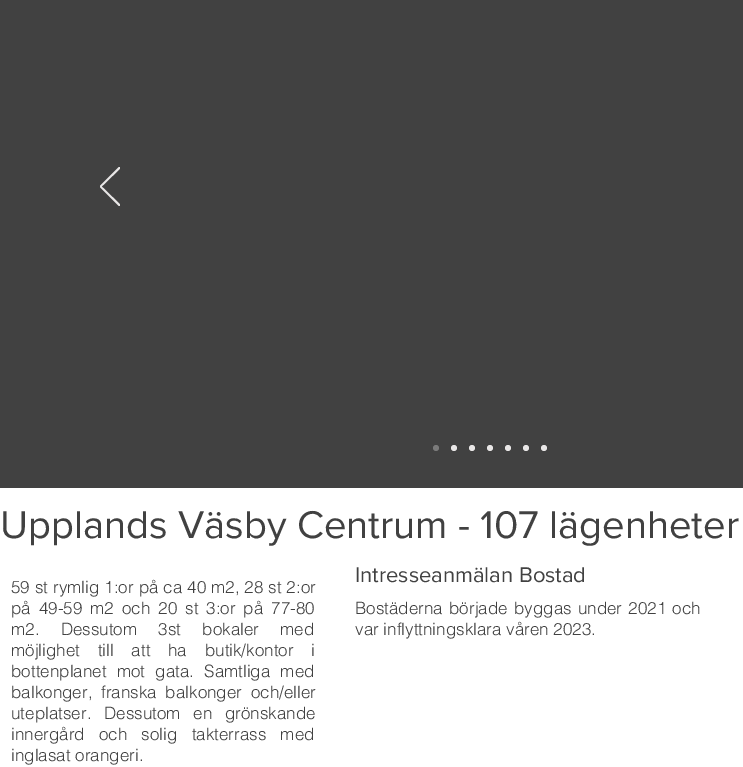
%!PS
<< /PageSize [743 767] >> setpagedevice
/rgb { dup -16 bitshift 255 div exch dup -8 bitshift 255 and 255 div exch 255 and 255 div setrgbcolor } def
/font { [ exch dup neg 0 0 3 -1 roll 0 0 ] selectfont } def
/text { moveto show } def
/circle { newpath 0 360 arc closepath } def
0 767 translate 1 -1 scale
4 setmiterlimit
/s1 { /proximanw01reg-Regular 40 font 16#414141 rgb } def
/s2 { /proximanw01reg-Regular 22 font 16#414141 rgb } def
/s3 { /helvetica-Light 17 font 16#414141 rgb } def
16#FFFFFF rgb
0 0 743 767 rectfill
16#414141 rgb
0 0 743 488 rectfill
gsave
100 167 20 39 rectclip
16#E8E6E6 rgb
119.5 206 moveto 100 186.5 lineto 119.5 167 lineto 120 168 lineto 101 186.5 lineto 120 205 lineto closepath stroke
grestore
16#7A7A7A rgb
436 448 3 circle fill
16#E8E6E6 rgb
454 448 3 circle fill
472 448 3 circle fill
490 448 3 circle fill
508 448 3 circle fill
526 448 3 circle fill
544 448 3 circle fill
s1
(Upplands Väsby Centrum - 107 lägenheter) 0 538 text
s2
(Intresseanmälan Bostad) 355 582 text
/helvetica-Light 17 font
11 593 moveto 0.25 0 32 (59 st rymlig 1:or på ca 40 m2, 28 st 2:or) widthshow
11 614 moveto 3.25 0 32 (på 49-59 m2 och 20 st 3:or på 77-80) widthshow
11 635 moveto 16.5 0 32 (m2. Dessutom 3st bokaler med) widthshow
11 656 moveto 13 0 32 (möjlighet till att ha butik/kontor i) widthshow
11 677 moveto 5.5 0 32 (bottenplanet mot gata. Samtliga med) widthshow
11 698 moveto 4 0 32 (balkonger, franska balkonger och/eller) widthshow
11 719 moveto 8 0 32 (uteplatser. Dessutom en grönskande) widthshow
11 740 moveto 9.5 0 32 (innergård och solig takterrass med) widthshow
(inglasat orangeri.) 11 761 text
355 614 moveto 1.5 0 32 (Bostäderna började byggas under 2021 och) widthshow
(var inflyttningsklara våren 2023.) 355 635 text
showpage
